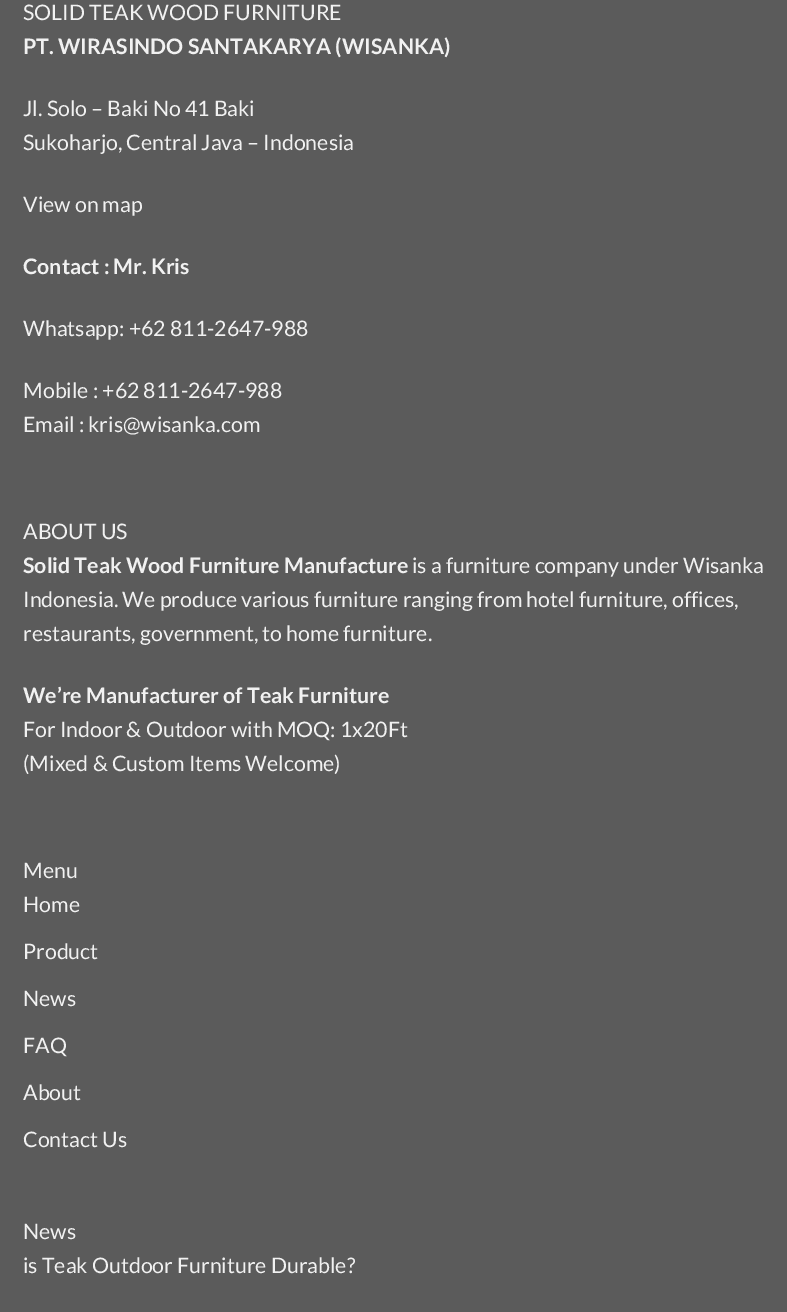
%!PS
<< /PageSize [787 1312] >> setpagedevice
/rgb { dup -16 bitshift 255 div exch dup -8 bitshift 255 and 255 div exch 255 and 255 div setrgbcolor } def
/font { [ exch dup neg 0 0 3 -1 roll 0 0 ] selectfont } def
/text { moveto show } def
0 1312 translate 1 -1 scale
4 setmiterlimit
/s1 { /Lato-Regular 21.35 font 16#F1F1F1 rgb } def
/s2 { /Lato-Bold 21.35 font 16#F1F1F1 rgb } def
16#5B5B5B rgb
0 0 787 1312 rectfill
s1
(SOLID TEAK WOOD FURNITURE) 23 20 text
s2
(PT. WIRASINDO SANTAKARYA \(WISANKA\)) 23 54 text
s1
(Jl. Solo – Baki No 41 Baki) 23 116 text
(Sukoharjo, Central Java – Indonesia) 23 150 text
(View on map) 23 212 text
s2
(Contact : Mr. Kris) 23 274 text
s1
(Whatsapp: +62 811-2647-988) 23 336 text
(Mobile : +62 811-2647-988) 23 398 text
(Email : kris@wisanka.com) 23 432 text
(ABOUT US) 23 539 text
s2
(Solid Teak Wood Furniture Manufacture) 23 573 text
s1
(is a furniture company under Wisanka) 412 573 text
(Indonesia. We produce various furniture ranging from hotel furniture, offices,) 23 607 text
(restaurants, government, to home furniture.) 23 641 text
s2
(We’re Manufacturer of Teak Furniture) 23 703 text
s1
(For Indoor & Outdoor with MOQ: 1x20Ft) 23 737 text
(\(Mixed & Custom Items Welcome\)) 23 771 text
(Menu) 23 878 text
(Home) 23 912 text
(Product) 23 959 text
(News) 23 1006 text
(FAQ) 23 1053 text
(About) 23 1100 text
(Contact Us) 23 1147 text
(News) 23 1239 text
(is Teak Outdoor Furniture Durable?) 23 1273 text
showpage
